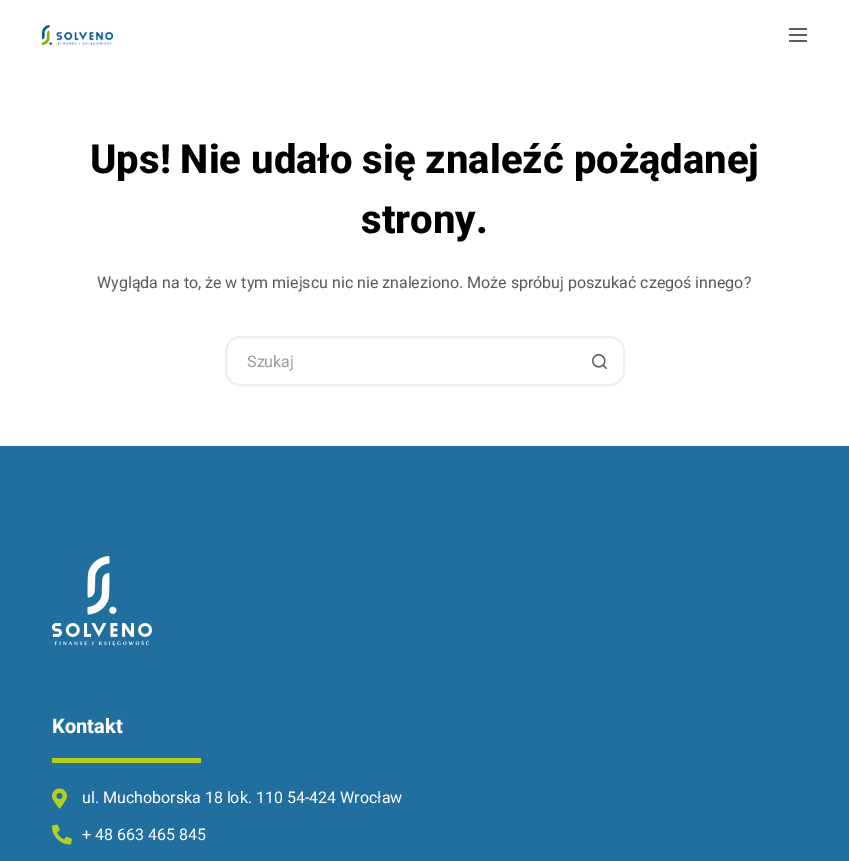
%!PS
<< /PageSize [849 861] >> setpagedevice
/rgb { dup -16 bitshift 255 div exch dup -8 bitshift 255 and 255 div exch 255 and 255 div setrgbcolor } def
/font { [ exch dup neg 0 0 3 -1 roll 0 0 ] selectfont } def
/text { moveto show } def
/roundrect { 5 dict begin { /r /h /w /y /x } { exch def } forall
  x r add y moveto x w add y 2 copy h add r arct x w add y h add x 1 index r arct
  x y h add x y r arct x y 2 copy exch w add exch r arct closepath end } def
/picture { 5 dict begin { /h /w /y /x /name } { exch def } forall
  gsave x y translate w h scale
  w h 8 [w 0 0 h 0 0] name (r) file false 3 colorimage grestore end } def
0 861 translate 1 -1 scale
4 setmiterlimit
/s1 { /Roboto-ExtraBold 40 font 16#000000 rgb } def
/s2 { /Roboto-Regular 16 font 16#5A5A5A rgb } def
/s3 { /Roboto-Regular 16 font 16#9C9C9C rgb } def
/s4 { /Roboto-ExtraBold 20 font 16#FFFFFF rgb } def
/s5 { /Roboto-Regular 16 font 16#FFFFFF rgb } def
16#FFFFFF rgb
0 0 849 861 rectfill
(pic1.raw) 42 25 71 20 picture
16#5A5A5A rgb
789 28 18 2 1 roundrect fill
789 34 18 2 1 roundrect fill
789 40 18 2 1 roundrect fill
s1
(Ups! Nie udało się znaleźć pożądanej) 90 173 text
(strony.) 361 233 text
s2
(Wygląda na to, że w tym miejscu nic nie znaleziono. Może spróbuj poszukać czegoś innego?) 97 288 text
16#EDEFF2 rgb
2 setlinewidth
226 337 398 48 14 roundrect stroke
s3
(Szukaj) 247 367 text
(pic2.raw) 592 354 15 15 picture
16#216F9F rgb
0 446 849 415 rectfill
(pic3.raw) 52 556 100 90 picture
s4
(Kontakt) 52 733 text
16#B4CE1C rgb
52 758 149 5 rectfill
(pic4.raw) 52 788 15 21 picture
s5
(ul. Muchoborska 18 lok. 110 54-424 Wrocław) 82 803 text
(pic5.raw) 52 824 20 21 picture
(+ 48 663 465 845) 82 840 text
showpage
